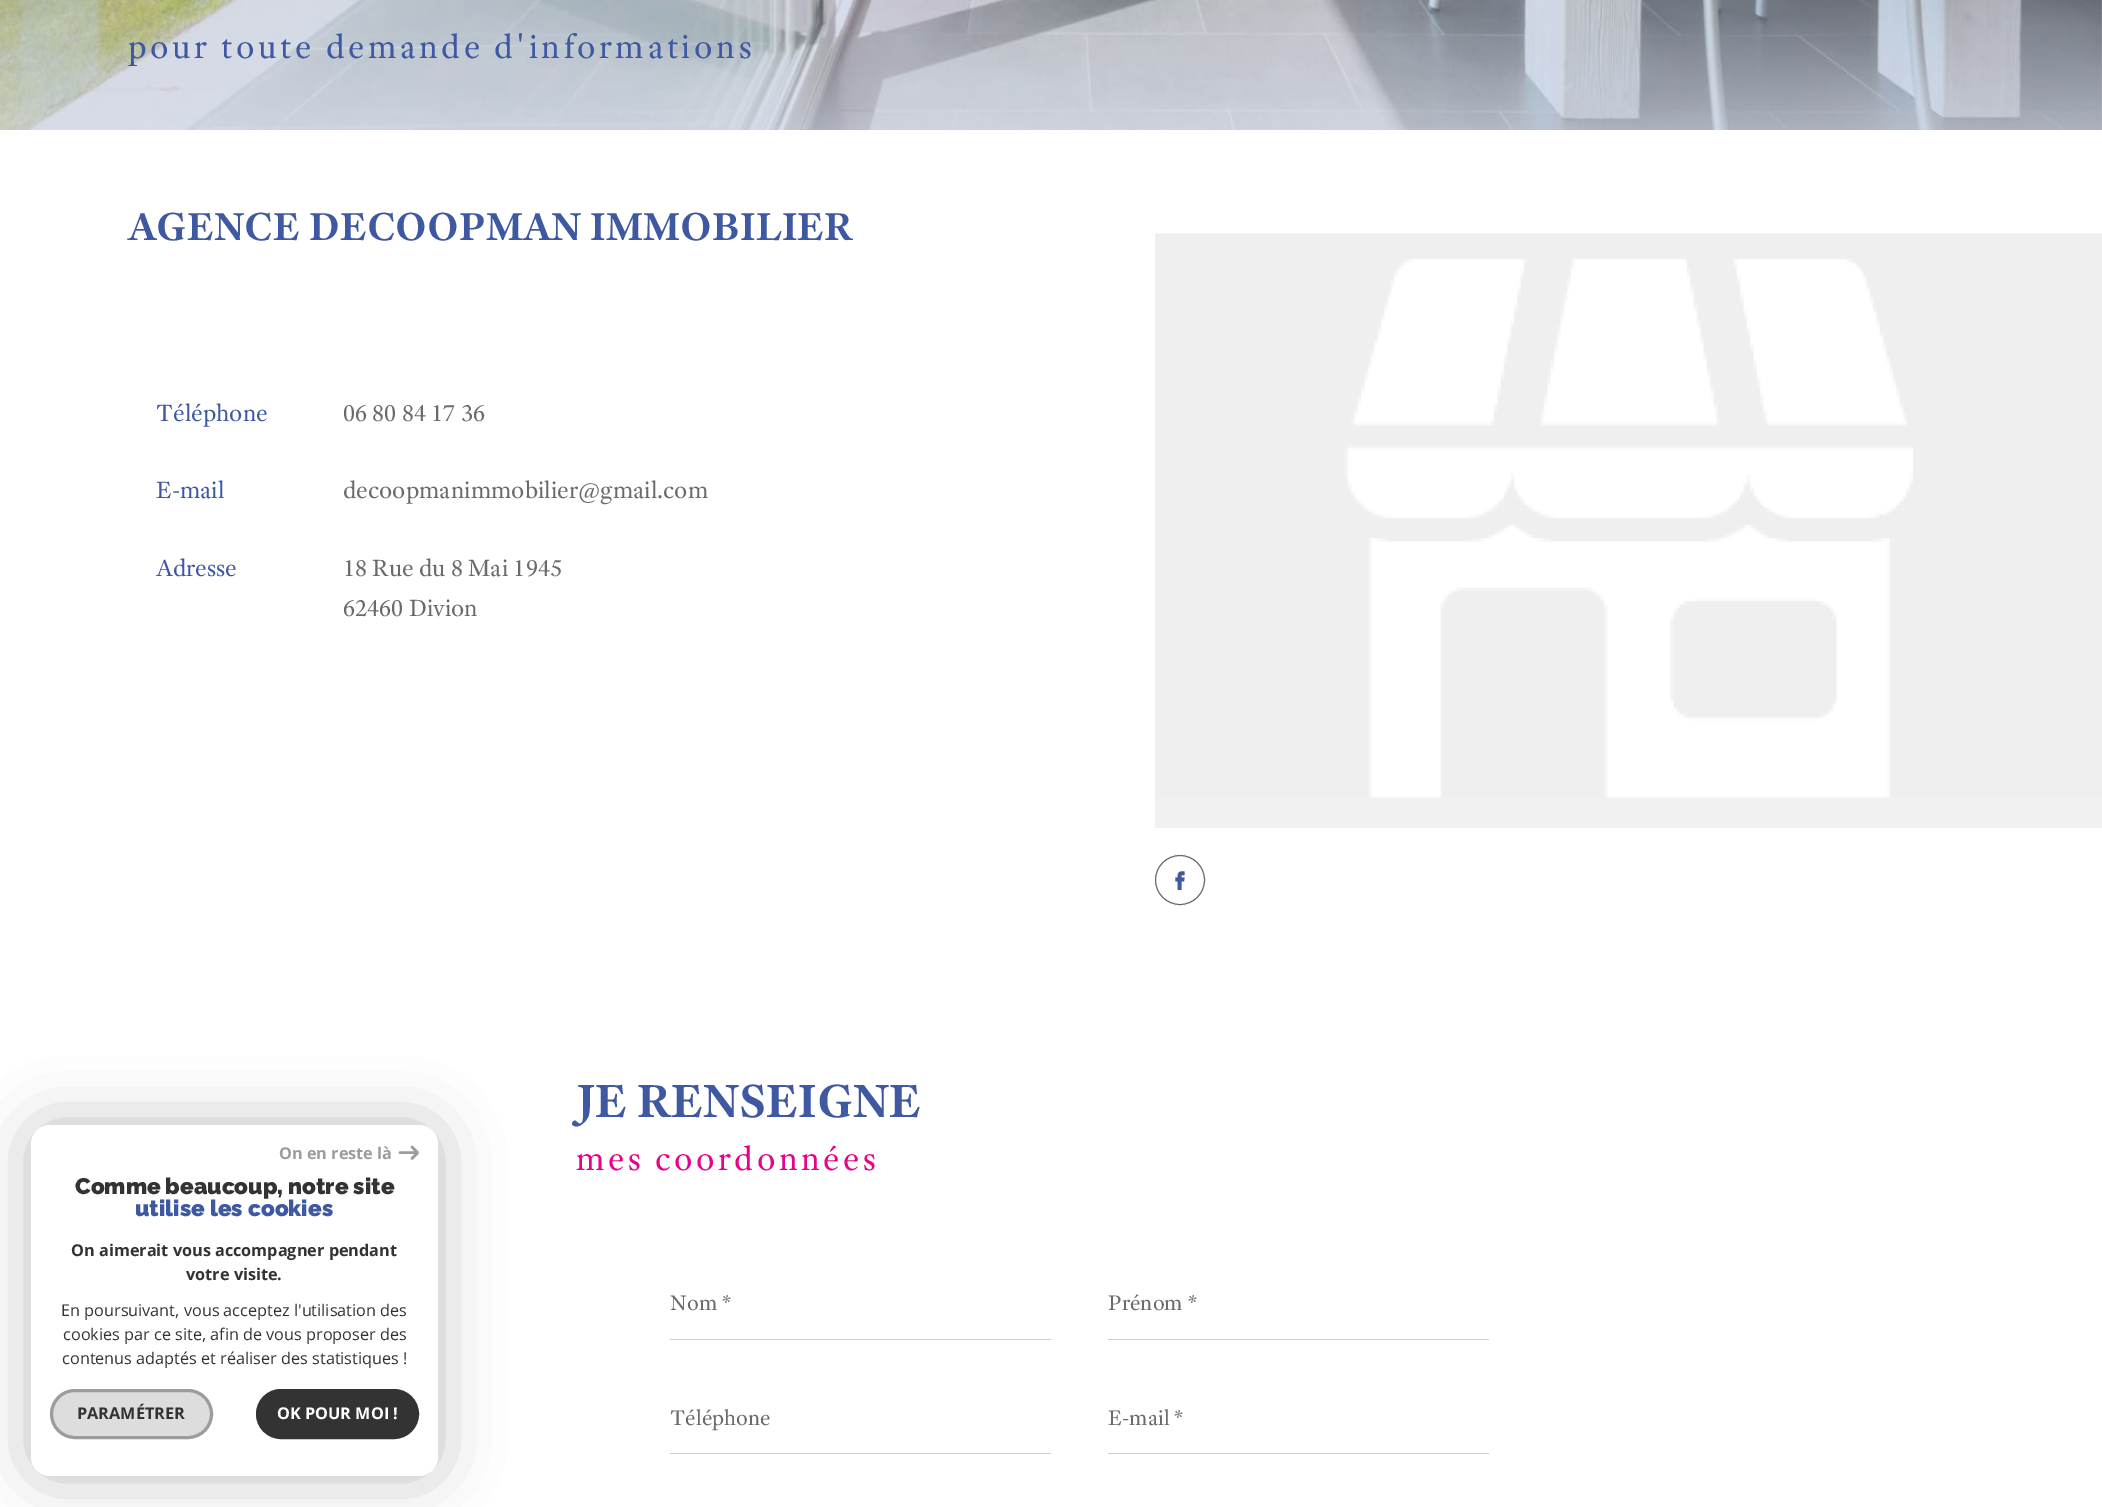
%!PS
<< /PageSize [2102 1507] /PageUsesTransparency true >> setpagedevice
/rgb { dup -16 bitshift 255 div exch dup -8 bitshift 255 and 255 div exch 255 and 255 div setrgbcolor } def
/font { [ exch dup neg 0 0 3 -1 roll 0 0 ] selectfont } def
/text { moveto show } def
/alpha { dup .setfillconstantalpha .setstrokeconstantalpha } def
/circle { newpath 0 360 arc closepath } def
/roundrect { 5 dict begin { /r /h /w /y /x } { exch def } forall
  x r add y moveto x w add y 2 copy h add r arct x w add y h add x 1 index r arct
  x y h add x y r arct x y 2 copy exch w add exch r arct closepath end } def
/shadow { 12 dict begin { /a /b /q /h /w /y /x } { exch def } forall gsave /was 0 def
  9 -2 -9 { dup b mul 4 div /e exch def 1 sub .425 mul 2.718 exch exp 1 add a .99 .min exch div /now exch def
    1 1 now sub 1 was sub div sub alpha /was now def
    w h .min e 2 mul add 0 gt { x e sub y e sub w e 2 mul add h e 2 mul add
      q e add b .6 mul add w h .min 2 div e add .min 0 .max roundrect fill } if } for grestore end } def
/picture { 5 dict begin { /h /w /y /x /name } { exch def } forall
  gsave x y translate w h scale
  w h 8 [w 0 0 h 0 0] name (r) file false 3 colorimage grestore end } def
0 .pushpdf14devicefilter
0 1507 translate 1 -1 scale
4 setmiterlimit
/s1 { /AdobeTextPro-Bold 42 font 16#3E58A2 rgb } def
/s2 { /AdobeTextPro-Regular 25 font 16#3E58A2 rgb } def
/s3 { /AdobeTextPro-Regular 25 font 16#6A6A6A rgb } def
/s4 { /AdobeTextPro-Bold 50 font 16#3E58A2 rgb } def
/s5 { /AdobeTextPro-Regular 22.5 font 16#6A6A6A rgb } def
/s6 { /OpenSans-Bold 16.25 font 16#9C9C9C rgb } def
/s7 { /Raleway-Thin 22.5 font 16#333333 rgb } def
/s8 { /Raleway-Thin 22.5 font 16#3E58A2 rgb } def
/s9 { /OpenSans-Bold 16.25 font 16#333333 rgb } def
/s10 { /OpenSans-Regular 16.25 font 16#333333 rgb } def
/s11 { /OpenSans-Bold 16.25 font 16#FFFFFF rgb } def
16#FFFFFF rgb
0 0 2102 1507 rectfill
(pic1.raw) 0 0 2102 130 picture
/AdobeTextPro-Regular 35 font
16#3E58A2 rgb
128 58 moveto 3.5 0 (pour toute demande d'informations) ashow
s1
(AGENCE DECOOPMAN IMMOBILIER) 128 240 text
s2
(Téléphone) 156 421 text
s3
(06 80 84 17 36) 343 421 text
s2
(E-mail) 156 498 text
s3
(decoopmanimmobilier@gmail.com) 343 498 text
s2
(Adresse) 156 576 text
s3
(18 Rue du 8 Mai 1945) 343 576 text
(62460 Divion) 343 616 text
16#F1F1F1 rgb
1155 798 947 30 rectfill
(pic2.raw) 1155 233 947 565 picture
16#6A6A6A rgb
1180 880 24.5 circle stroke
(pic3.raw) 1175 871 10 19 picture
s4
(JE RENSEIGNE) 576 1117 text
/AdobeTextPro-Regular 35 font
16#E70289 rgb
576 1170 moveto 3.5 0 (mes coordonnées) ashow
16#CECECE rgb
670 1339 381 1 rectfill
s5
(Nom *) 670 1310 text
16#CECECE rgb
1108 1339 381 1 rectfill
s5
(Prénom *) 1108 1310 text
16#CECECE rgb
670 1453 381 1 rectfill
s5
(Téléphone) 670 1425 text
16#CECECE rgb
1108 1453 381 1 rectfill
s5
(E-mail *) 1108 1425 text
16#000000 rgb
31 1125 407 351 19 31 0.25 shadow
16#FFFFFF rgb
31 1125 407 351 19 roundrect fill
s6
(On en reste là) 279 1159 text
2.5 setlinewidth
1 setlinecap
400 1152.5 moveto 417.5 1152.5 lineto 412 1147 moveto 417.5 1152.5 lineto 412 1158.5 moveto 417.5 1153 lineto stroke
s7
(Comme beaucoup, notre site) 75 1194 text
s8
(utilise les cookies) 135 1216 text
s9
(On aimerait vous accompagner pendant) 71 1256 text
(votre visite.) 186 1280 text
s10
(En poursuivant, vous acceptez l'utilisation des) 61 1316 text
(cookies par ce site, afin de vous proposer des) 63 1340 text
(contenus adaptés et réaliser des statistiques !) 62 1364 text
16#DDDDDD rgb
51.5 1390.5 160 47 23.5 roundrect gsave fill grestore
16#9C9C9C rgb
3 setlinewidth
0 setlinecap
stroke
s9
(PARAMÉTRER) 77 1419 text
257.5 1390.5 160 47 23.5 roundrect gsave fill grestore
stroke
s11
(OK POUR MOI !) 277 1419 text
.poppdf14devicefilter showpage
